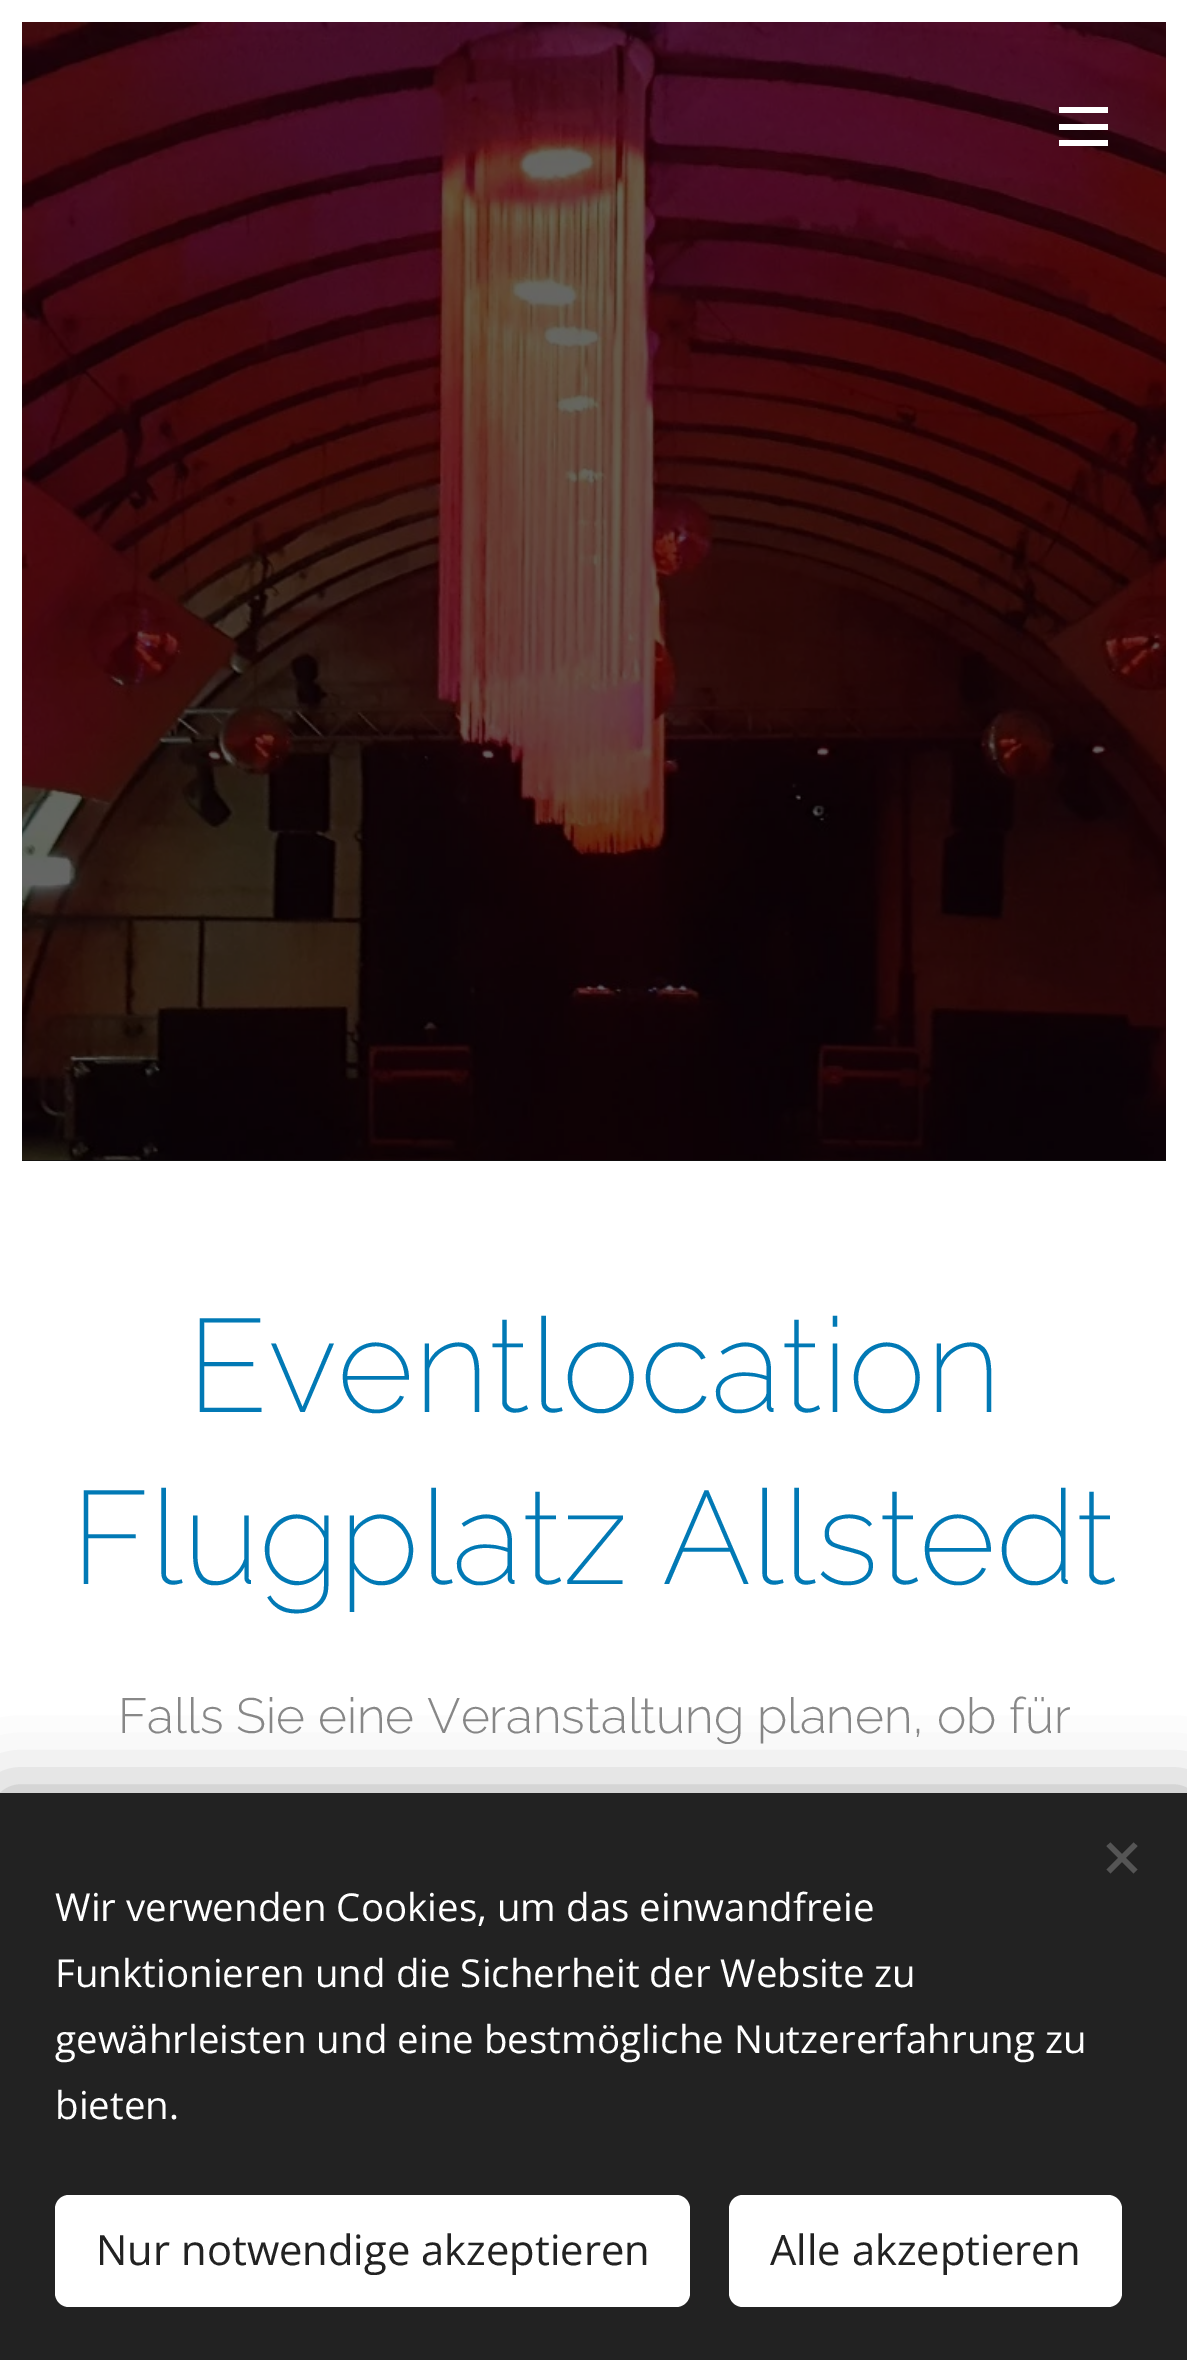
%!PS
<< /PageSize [1187 2360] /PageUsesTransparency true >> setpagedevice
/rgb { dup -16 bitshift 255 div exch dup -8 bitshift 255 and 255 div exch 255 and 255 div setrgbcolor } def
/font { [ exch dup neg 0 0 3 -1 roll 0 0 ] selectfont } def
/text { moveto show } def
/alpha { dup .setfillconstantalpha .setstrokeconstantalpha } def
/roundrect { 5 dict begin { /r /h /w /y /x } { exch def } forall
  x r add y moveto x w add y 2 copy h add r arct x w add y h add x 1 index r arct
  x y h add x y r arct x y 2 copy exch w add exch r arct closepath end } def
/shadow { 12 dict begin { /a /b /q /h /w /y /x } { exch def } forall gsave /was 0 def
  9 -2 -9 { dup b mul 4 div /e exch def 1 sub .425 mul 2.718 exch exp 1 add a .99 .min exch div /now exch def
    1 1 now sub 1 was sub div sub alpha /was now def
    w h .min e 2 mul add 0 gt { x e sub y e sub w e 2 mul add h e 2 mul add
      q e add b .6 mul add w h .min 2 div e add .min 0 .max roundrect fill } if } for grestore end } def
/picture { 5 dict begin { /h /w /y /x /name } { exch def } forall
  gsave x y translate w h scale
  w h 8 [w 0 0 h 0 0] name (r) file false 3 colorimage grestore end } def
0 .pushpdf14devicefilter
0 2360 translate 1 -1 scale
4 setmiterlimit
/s1 { /Raleway-ExtraLight 132 font 16#0179B5 rgb } def
/s2 { /Raleway-Light 49.5 font 16#888888 rgb } def
/s3 { /OpenSans-Regular 38.5 font 16#FFFFFF rgb } def
/s4 { /OpenSans-Regular 41.75 font 16#222222 rgb } def
16#FFFFFF rgb
0 0 1187 2360 rectfill
16#101010 rgb
22 1160 1144 1 rectfill
(pic1.raw) 22 22 1144 1139 picture
16#FFFFFF rgb
1059 124 49 6 rectfill
1059 107 49 6 rectfill
1059 140 49 6 rectfill
s1
(Eventlocation) 187 1412 text
(Flugplatz Allstedt) 71 1584 text
s2
(Falls Sie eine Veranstaltung planen, ob für) 118 1733 text
16#000000 rgb
0 1793 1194 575 0 34.5 0.33 shadow
16#222222 rgb
0 1793 1187 567 rectfill
16#555555 rgb
1106.5 1869.5 moveto 1133.5 1842.5 lineto 1137.5 1846 lineto 1110.5 1873.5 lineto closepath fill
1110.5 1842.5 moveto 1137.5 1869.5 lineto 1133.5 1873.5 lineto 1106.5 1846 lineto closepath fill
s3
(Wir verwenden Cookies, um das einwandfreie) 55 1921 text
(Funktionieren und die Sicherheit der Website zu) 55 1987 text
(gewährleisten und eine bestmögliche Nutzererfahrung zu) 55 2053 text
(bieten.) 55 2119 text
55 2195 635 112 14 roundrect fill
s4
(Nur notwendige akzeptieren) 96 2265 text
16#FFFFFF rgb
729 2195 393 112 14 roundrect fill
s4
(Alle akzeptieren) 770 2265 text
.poppdf14devicefilter showpage
